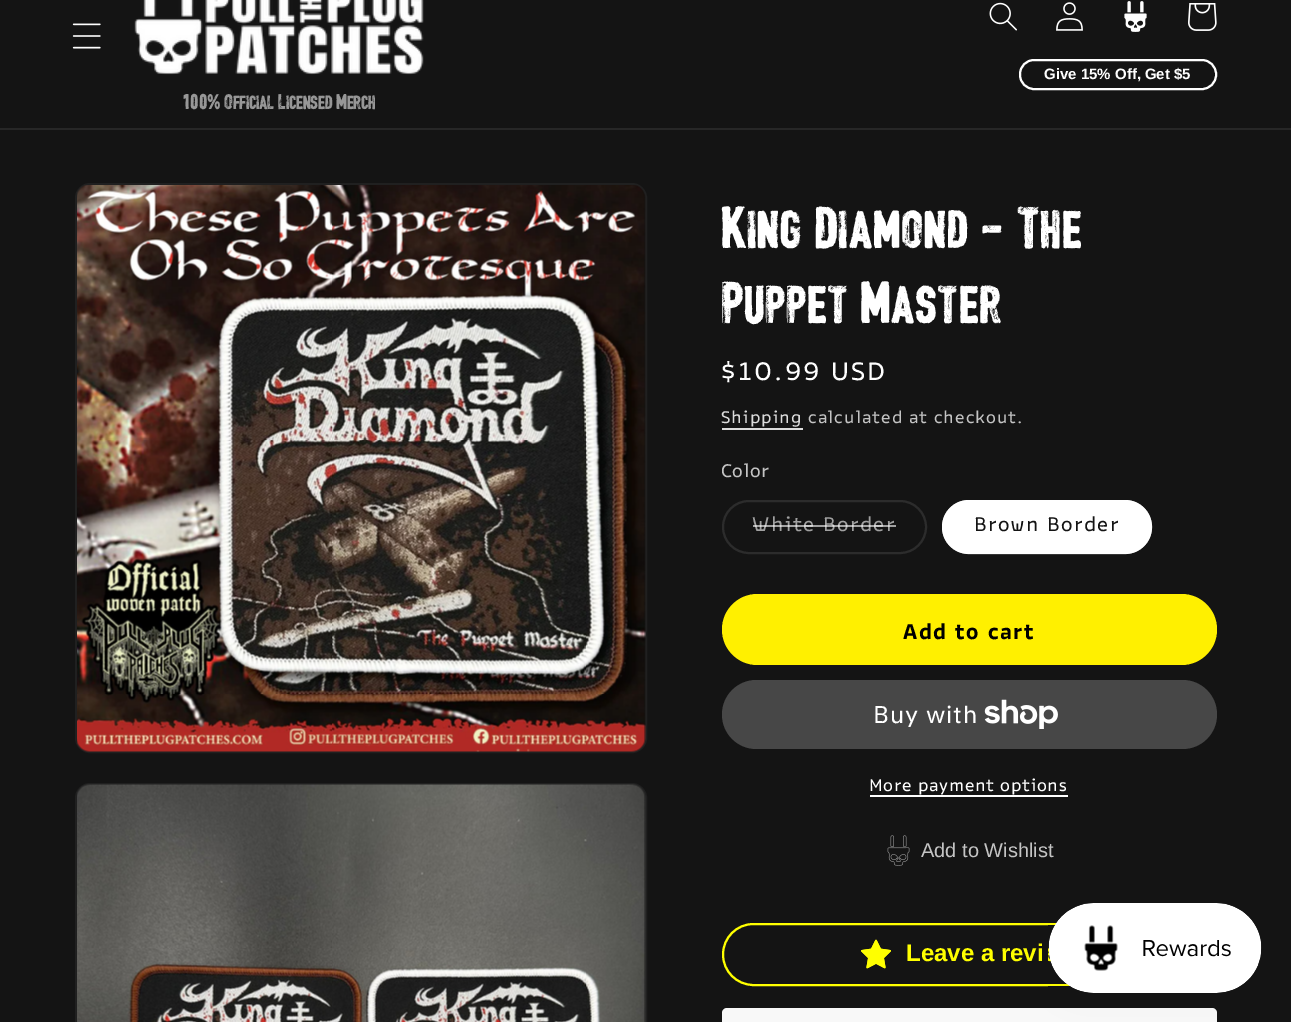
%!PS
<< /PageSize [1291 1022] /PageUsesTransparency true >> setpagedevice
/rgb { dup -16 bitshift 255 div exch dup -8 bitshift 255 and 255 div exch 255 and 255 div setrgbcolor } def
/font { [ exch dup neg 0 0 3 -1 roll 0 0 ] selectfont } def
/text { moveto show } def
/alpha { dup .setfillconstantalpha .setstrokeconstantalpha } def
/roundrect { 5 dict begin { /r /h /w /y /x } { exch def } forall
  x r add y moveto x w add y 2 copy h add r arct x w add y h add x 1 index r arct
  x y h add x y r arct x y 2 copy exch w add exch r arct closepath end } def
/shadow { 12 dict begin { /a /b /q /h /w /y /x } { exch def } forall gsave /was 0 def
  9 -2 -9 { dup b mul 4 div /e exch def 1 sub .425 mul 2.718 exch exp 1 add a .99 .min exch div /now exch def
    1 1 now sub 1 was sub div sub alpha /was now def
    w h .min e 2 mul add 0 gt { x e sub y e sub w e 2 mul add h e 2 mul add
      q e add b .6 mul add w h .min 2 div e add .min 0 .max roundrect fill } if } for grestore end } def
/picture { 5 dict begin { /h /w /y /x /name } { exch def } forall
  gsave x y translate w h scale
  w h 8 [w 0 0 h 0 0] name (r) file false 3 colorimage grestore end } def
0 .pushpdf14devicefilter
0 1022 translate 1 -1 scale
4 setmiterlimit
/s1 { /LiberationSans-Bold 15 font 16#FFFFFF rgb } def
/s2 { /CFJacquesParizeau-Regular 22.5 font 16#979797 rgb } def
/s3 { /LiberationSans-Regular 20 font 16#C4C4C4 rgb } def
/s4 { /LiberationSans-Bold 24 font 16#FFFF00 rgb } def
16#141414 rgb
0 0 1291 1022 rectfill
16#272727 rgb
0 128 1291 2 rectfill
(pic1.raw) 72 23 29 26 picture
(pic2.raw) 989 2 28 29 picture
(pic3.raw) 1056 2 27 29 picture
(pic4.raw) 1124 1 23 31 picture
(pic5.raw) 1188 3 29 28 picture
16#FFFFFF rgb
2 setlinewidth
1020 60 196 29 14 roundrect stroke
s1
(Give 15% Off, Get $5) 1044 79 text
(pic6.raw) 134 0 290 75 picture
s2
(100% Official Licensed Merch) 182 109 text
16#202020 rgb
76 184 570 568 14 roundrect stroke
(pic7.raw) 77 185 569 567 picture
76 784 570 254 14 roundrect stroke
(pic8.raw) 77 784 569 238 picture
/CFJacquesParizeau-Regular 62.5 font
16#FFFFFF rgb
721 248 moveto 1.4 0 (King Diamond - The) ashow
721 323 moveto 1.4 0 (Puppet Master) ashow
/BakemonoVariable-Regular 27 font
721 380 moveto 2 0 ($10.99 USD) ashow
/BakemonoVariable-Regular 18 font
16#DCDCDC rgb
721 423 moveto 1.05 0 (Shipping) ashow
722 428 81 2 rectfill
16#C4C4C4 rgb
808 423 moveto 1.05 0 (calculated at checkout.) ashow
/BakemonoVariable-Regular 19.5 font
721 477 moveto 0.5 0 (Color) ashow
16#2C2C2C rgb
723 501 203 52 26 roundrect stroke
/BakemonoVariable-Regular 21 font
16#A1A1A1 rgb
752 531 moveto 1.5 0 (White Border) ashow
0.6 alpha
16#FFFFFF rgb
753 525 143 2 rectfill
1 alpha
942 500 210 54 27 roundrect fill
0.55 alpha
943 501 208 52 26 roundrect stroke
1 alpha
16#141414 rgb
974 531 moveto 1.5 0 (Brown Border) ashow
16#FFF000 rgb
722 594 495 71 35.5 roundrect fill
/BakemonoVariable-Bold 22.5 font
16#000000 rgb
903 639 moveto 1.5 0 (Add to cart) ashow
16#474747 rgb
722 680 495 69 34.5 roundrect fill
/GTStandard-Regular 24 font
16#FFFFFF rgb
873 723 moveto 1 0 (Buy with) ashow
(pic9.raw) 984 699 74 30 picture
/BakemonoVariable-Regular 18 font
869 791 moveto 0.75 0 (More payment options) ashow
870 795 198 2 rectfill
(pic10.raw) 887 835 23 31 picture
s3
(Add to Wishlist) 921 857 text
16#FFFF00 rgb
723 924 493 61 30.5 roundrect stroke
(pic11.raw) 861 939 30 30 picture
s4
(Leave a revi) 906 961 text
16#F8F8F8 rgb
722 1008 495 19 5 roundrect fill
16#000000 rgb
1049 903 213 90 45 19 0.05 shadow
(pic12.raw) 1048 903 214 90 picture
.poppdf14devicefilter showpage
